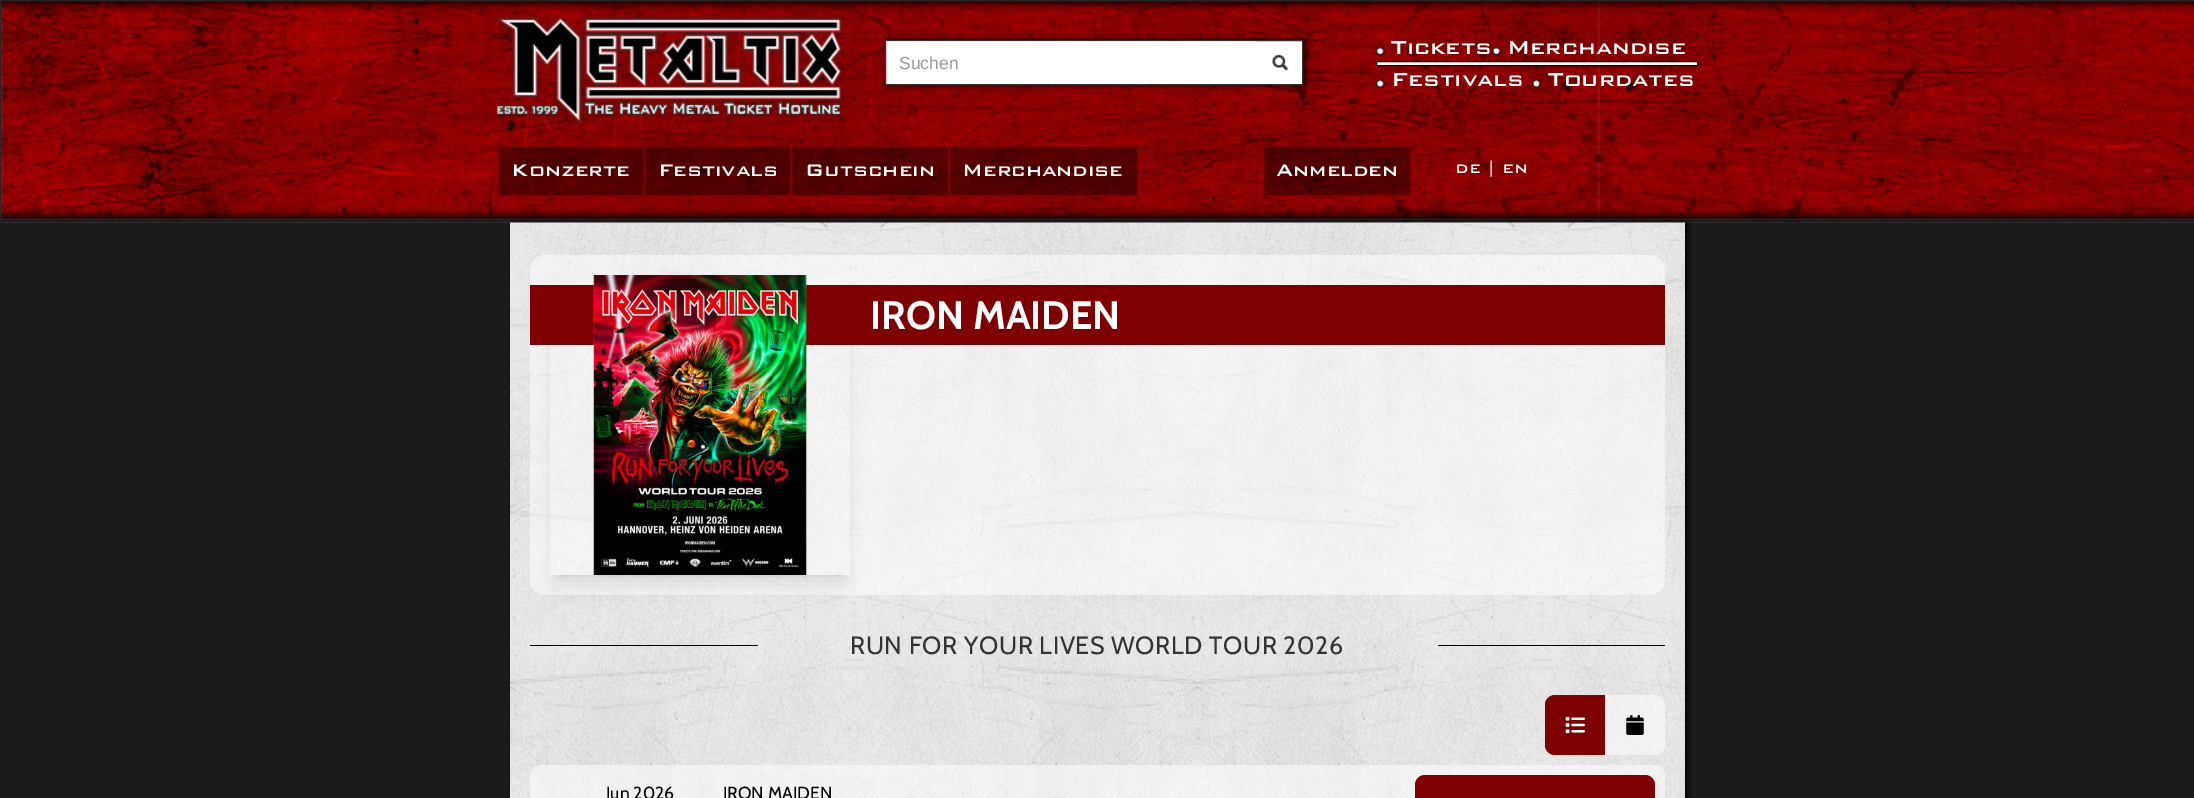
%!PS
<< /PageSize [2194 798] /PageUsesTransparency true >> setpagedevice
/rgb { dup -16 bitshift 255 div exch dup -8 bitshift 255 and 255 div exch 255 and 255 div setrgbcolor } def
/font { [ exch dup neg 0 0 3 -1 roll 0 0 ] selectfont } def
/text { moveto show } def
/alpha { dup .setfillconstantalpha .setstrokeconstantalpha } def
/roundrect { 5 dict begin { /r /h /w /y /x } { exch def } forall
  x r add y moveto x w add y 2 copy h add r arct x w add y h add x 1 index r arct
  x y h add x y r arct x y 2 copy exch w add exch r arct closepath end } def
/shadow { 12 dict begin { /a /b /q /h /w /y /x } { exch def } forall gsave /was 0 def
  9 -2 -9 { dup b mul 4 div /e exch def 1 sub .425 mul 2.718 exch exp 1 add a .99 .min exch div /now exch def
    1 1 now sub 1 was sub div sub alpha /was now def
    w h .min e 2 mul add 0 gt { x e sub y e sub w e 2 mul add h e 2 mul add
      q e add b .6 mul add w h .min 2 div e add .min 0 .max roundrect fill } if } for grestore end } def
/picture { 5 dict begin { /h /w /y /x /name } { exch def } forall
  gsave x y translate w h scale
  w h 8 [w 0 0 h 0 0] name (r) file false 3 colorimage grestore end } def
0 .pushpdf14devicefilter
0 798 translate 1 -1 scale
4 setmiterlimit
/s1 { /LiberationSans-Regular 17.5 font 16#999999 rgb } def
/s2 { /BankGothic-Medium 25 font 16#FEFEFE rgb } def
/s3 { /BankGothic-Medium 22.5 font 16#FEFEFE rgb } def
/s4 { /BankGothic-Medium 16.25 font 16#FEFEFE rgb } def
/s5 { /Cabin-Bold 39.5 font 16#FEFEFE rgb } def
/s6 { /Cabin-Regular 17.5 font 16#000000 rgb } def
16#1B1B1B rgb
0 0 2194 798 rectfill
(pic1.raw) 1 1 2193 221 picture
16#252525 rgb
0.5 0.5 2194 222 rectstroke
(pic2.raw) 497 17 345 107 picture
16#000000 rgb
888 40 417 45 0 3 1 shadow
16#FFFFFF rgb
885.5 40.5 moveto 1302.5 40.5 lineto 1302.5 84.5 lineto 885.5 84.5 lineto closepath gsave fill grestore
16#333333 rgb
stroke
16#ECECEC rgb
886 41 369 1 rectfill
s1
(Suchen) 899 69 text
(pic3.raw) 1272 54 17 18 picture
(pic4.raw) 1376 46 9 11 picture
s2
(Tickets) 1391 54 text
(pic5.raw) 1492 46 10 11 picture
(Merchandise) 1507 54 text
16#FFFFFF rgb
1376.5 61.5 moveto 1697.5 61.5 lineto 1697.5 65.5 lineto 1376.5 65.5 lineto closepath gsave fill grestore
16#000000 rgb
stroke
(pic6.raw) 1376 78 9 11 picture
s2
(Festivals) 1391 86 text
(pic7.raw) 1532 78 10 11 picture
(Tourdates) 1548 86 text
0.4 alpha
16#000000 rgb
498.5 146.5 moveto 643.5 146.5 lineto 643.5 195.5 lineto 498.5 195.5 lineto closepath fill
1 alpha
16#7F0000 rgb
498.5 146.5 moveto 643.5 146.5 lineto 643.5 195.5 lineto 498.5 195.5 lineto closepath stroke
s3
(Konzerte) 511 176 text
0.4 alpha
16#000000 rgb
644.5 146.5 moveto 790.5 146.5 lineto 790.5 195.5 lineto 644.5 195.5 lineto closepath fill
1 alpha
16#7F0000 rgb
644.5 146.5 moveto 790.5 146.5 lineto 790.5 195.5 lineto 644.5 195.5 lineto closepath stroke
s3
(Festivals) 658 176 text
0.4 alpha
16#000000 rgb
791.5 146.5 moveto 948.5 146.5 lineto 948.5 195.5 lineto 791.5 195.5 lineto closepath fill
1 alpha
16#7F0000 rgb
791.5 146.5 moveto 948.5 146.5 lineto 948.5 195.5 lineto 791.5 195.5 lineto closepath stroke
s3
(Gutschein) 805 176 text
0.4 alpha
16#000000 rgb
949.5 146.5 moveto 1137.5 146.5 lineto 1137.5 195.5 lineto 949.5 195.5 lineto closepath fill
1 alpha
16#7F0000 rgb
949.5 146.5 moveto 1137.5 146.5 lineto 1137.5 195.5 lineto 949.5 195.5 lineto closepath stroke
s3
(Merchandise) 962 176 text
0.4 alpha
16#000000 rgb
1263.5 146.5 moveto 1410.5 146.5 lineto 1410.5 195.5 lineto 1263.5 195.5 lineto closepath fill
1 alpha
16#7F0000 rgb
1263.5 146.5 moveto 1410.5 146.5 lineto 1410.5 195.5 lineto 1263.5 195.5 lineto closepath stroke
s3
(Anmelden) 1276 176 text
s4
(DE | EN) 1455 173 text
16#000000 rgb
513 223 1175 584 0 3 1 shadow
(pic8.raw) 510 222 1175 576 picture
0.5 alpha
16#FFFFFF rgb
530 255 1135 340 15 roundrect fill
1 alpha
16#7F0000 rgb
530 285 1135 60 rectfill
gsave
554 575 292 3 rectclip
16#000000 rgb
555 285 290 290 0 4 0.1 shadow
grestore
gsave
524 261 moveto 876 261 lineto 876 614 lineto 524 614 lineto closepath 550 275 moveto 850 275 lineto 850 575 lineto 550 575 lineto closepath eoclip newpath
16#000000 rgb
554 291 292 293 0 9.5 0.1 shadow
grestore
(pic9.raw) 593 275 214 300 picture
s5
(IRON MAIDEN) 870 329 text
16#000000 rgb
530 645 228 1 rectfill
/Cabin-Regular 25 font
16#333333 rgb
850 654 moveto 0.6 0 (RUN FOR YOUR LIVES WORLD TOUR 2026) ashow
16#000000 rgb
1438 645 227 1 rectfill
1545 696 60 60 10 1 0.05 shadow
16#7F0000 rgb
1555 695 moveto 1605 695 lineto 1605 755 lineto 1555 755 lineto 1549.5 755 1545 750.5 1545 745 curveto 1545 705 lineto 1545 699.5 1549.5 695 1555 695 curveto closepath fill
(pic10.raw) 1565 716 20 18 picture
0.5 alpha
16#FFFFFF rgb
1605 695 moveto 1655 695 lineto 1660.5 695 1665 699.5 1665 705 curveto 1665 745 lineto 1665 750.5 1660.5 755 1655 755 curveto 1605 755 lineto closepath fill
1 alpha
(pic11.raw) 1626 715 18 20 picture
0.5 alpha
530 765 1135 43 10 roundrect fill
1 alpha
s6
(Jun 2026) 606 799 text
(IRON MAIDEN) 723 799 text
16#7F0000 rgb
1415 775 240 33 10 roundrect fill
.poppdf14devicefilter showpage
